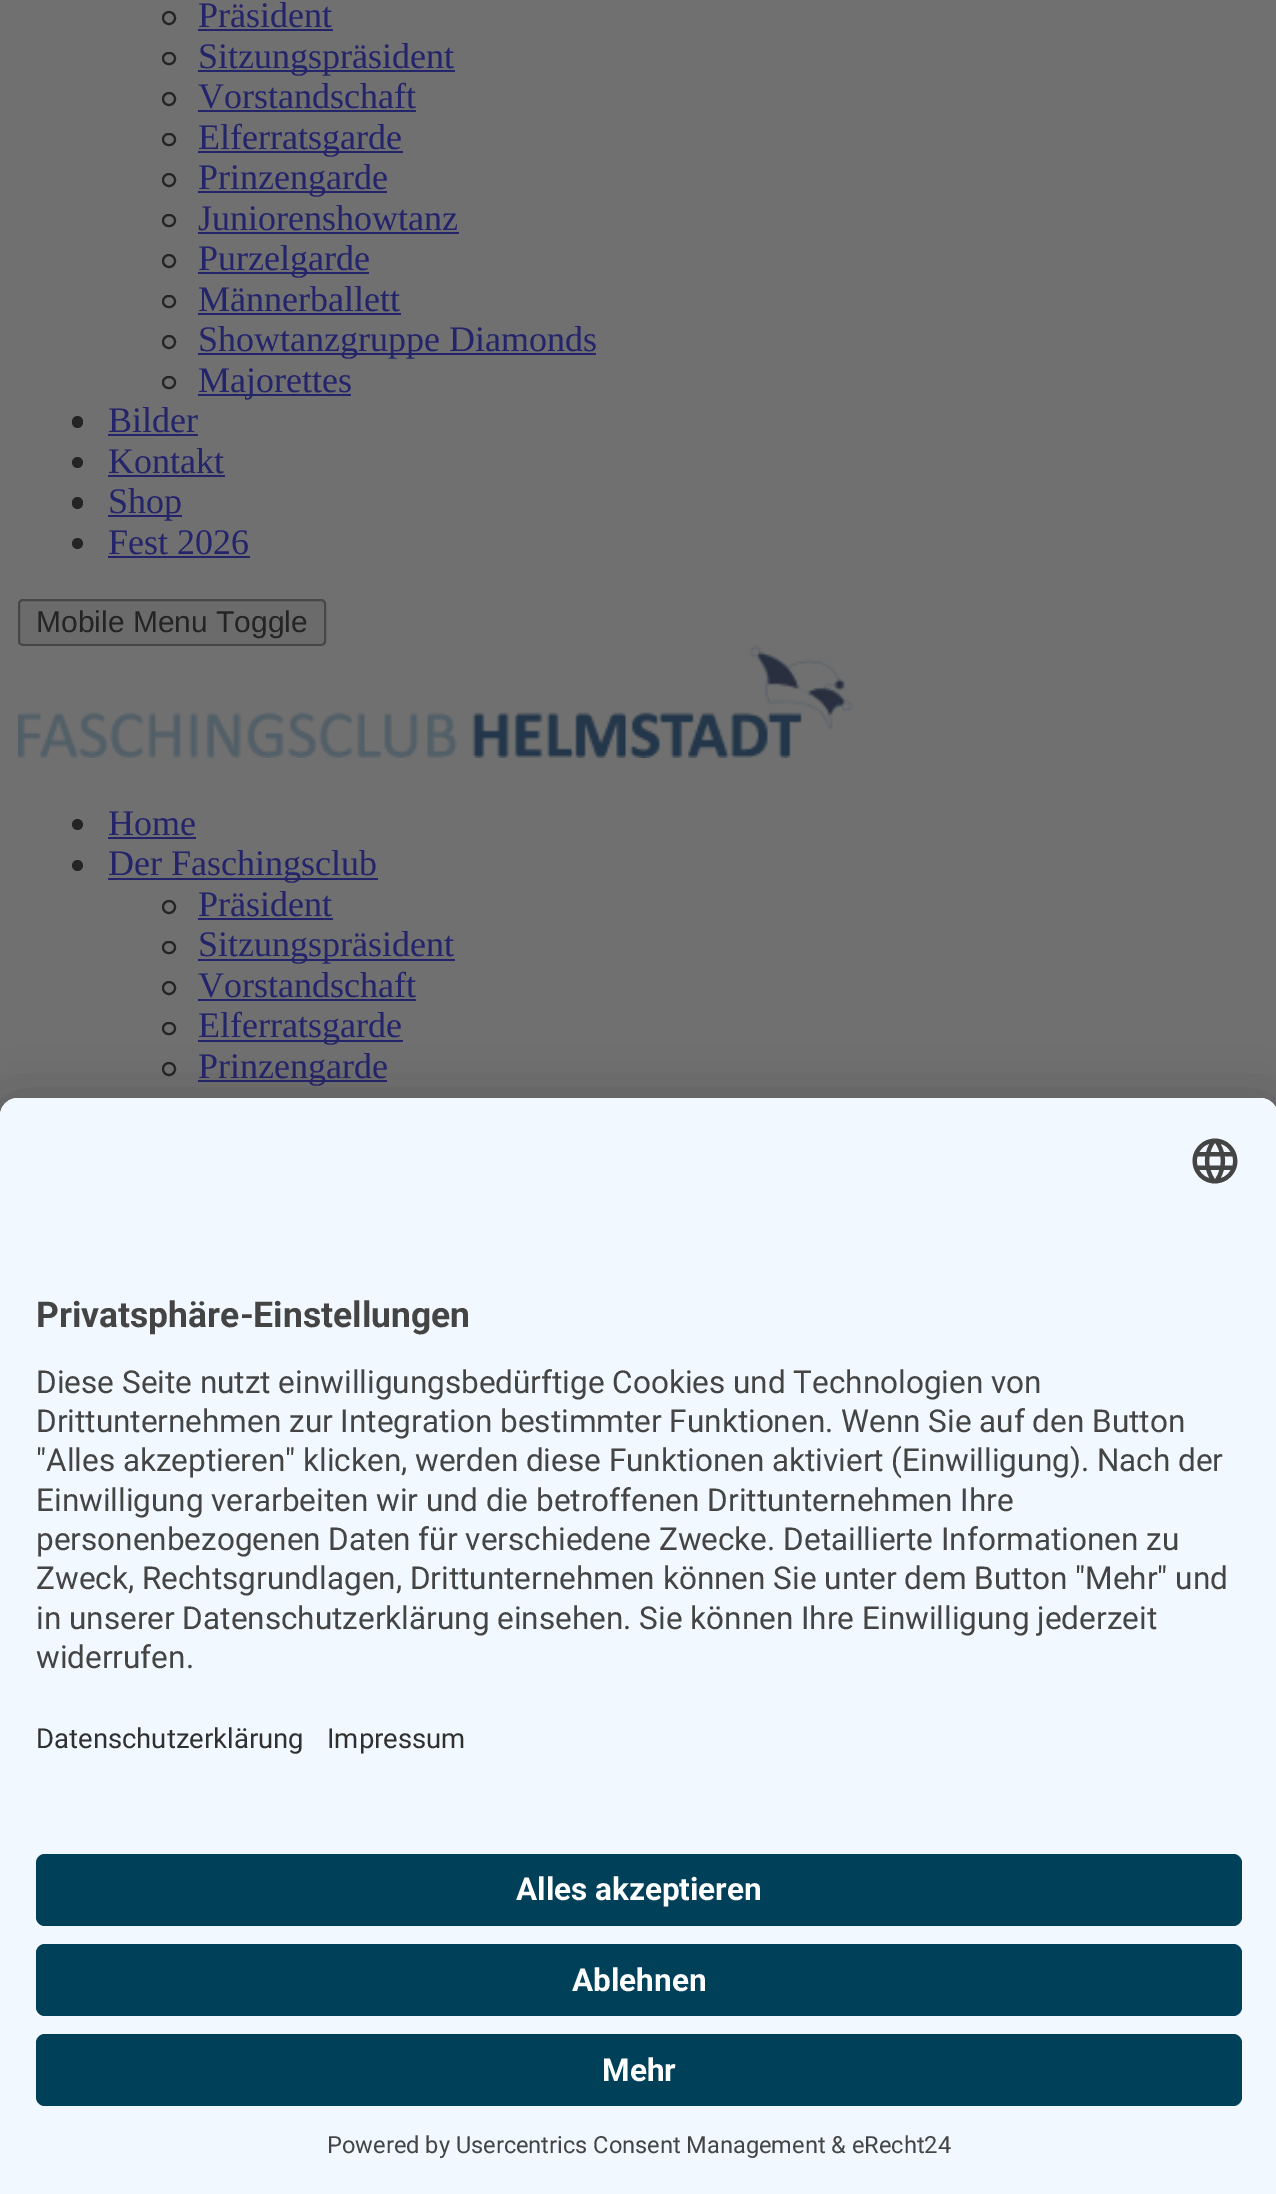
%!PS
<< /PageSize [1276 2194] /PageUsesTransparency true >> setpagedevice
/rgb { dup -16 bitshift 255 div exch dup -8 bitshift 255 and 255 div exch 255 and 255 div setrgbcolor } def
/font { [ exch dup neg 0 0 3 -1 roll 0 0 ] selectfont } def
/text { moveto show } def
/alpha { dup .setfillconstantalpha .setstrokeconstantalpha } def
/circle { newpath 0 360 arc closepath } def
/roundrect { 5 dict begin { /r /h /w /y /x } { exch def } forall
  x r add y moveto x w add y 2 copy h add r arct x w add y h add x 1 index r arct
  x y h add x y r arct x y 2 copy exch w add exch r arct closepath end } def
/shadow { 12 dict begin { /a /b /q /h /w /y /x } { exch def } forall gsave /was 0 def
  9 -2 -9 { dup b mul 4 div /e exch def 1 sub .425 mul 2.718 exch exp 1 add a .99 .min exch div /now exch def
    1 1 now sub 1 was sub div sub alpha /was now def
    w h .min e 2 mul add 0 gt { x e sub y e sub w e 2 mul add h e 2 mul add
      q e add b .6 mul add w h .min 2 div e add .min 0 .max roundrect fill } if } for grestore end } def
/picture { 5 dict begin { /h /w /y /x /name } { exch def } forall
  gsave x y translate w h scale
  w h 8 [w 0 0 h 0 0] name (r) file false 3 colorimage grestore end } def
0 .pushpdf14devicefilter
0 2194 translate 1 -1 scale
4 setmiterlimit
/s1 { /LiberationSerif-Regular 36 font 16#24246B rgb } def
/s2 { /LiberationSans-Regular 30 font 16#242424 rgb } def
/s3 { /Roboto-Bold 35.5 font 16#444444 rgb } def
/s4 { /Roboto-Regular 31.5 font 16#444444 rgb } def
/s5 { /Roboto-Regular 27.5 font 16#303030 rgb } def
/s6 { /Roboto-Bold 31.5 font 16#FFFFFF rgb } def
/s7 { /Roboto-Regular 23.6 font 16#444444 rgb } def
16#707070 rgb
0 0 1276 2194 rectfill
16#242424 rgb
2 setlinewidth
169 18 6 circle stroke
s1
(Präsident) 198 27 text
198 29 135 2 rectfill
16#242424 rgb
163 53 12 11 5.5 roundrect stroke
16#24246B rgb
198 70 257 2 rectfill
(Sitzungspräsident) 198 68 text
16#242424 rgb
169 99 6 circle stroke
s1
(Vorstandschaft) 198 108 text
198 110 218 2 rectfill
16#242424 rgb
163 134 12 11 5.5 roundrect stroke
16#24246B rgb
198 151 205 2 rectfill
(Elferratsgarde) 198 149 text
16#242424 rgb
169 180 6 circle stroke
16#24246B rgb
198 191 189 2 rectfill
(Prinzengarde) 198 189 text
16#242424 rgb
163 215 12 11 5.5 roundrect stroke
s1
(Juniorenshowtanz) 198 230 text
198 232 261 2 rectfill
16#242424 rgb
169 261 6 circle stroke
16#24246B rgb
198 272 171 2 rectfill
(Purzelgarde) 198 270 text
16#242424 rgb
163 296 12 11 5.5 roundrect stroke
s1
(Männerballett) 198 311 text
198 313 203 2 rectfill
16#242424 rgb
169 342 6 circle stroke
16#24246B rgb
198 353 398 2 rectfill
(Showtanzgruppe Diamonds) 198 351 text
16#242424 rgb
163 377 12 11 5.5 roundrect stroke
16#24246B rgb
198 394 153 2 rectfill
(Majorettes) 198 392 text
16#242424 rgb
72 416 11 12 5.5 roundrect fill
s1
(Bilder) 108 432 text
108 434 90 2 rectfill
16#242424 rgb
77.5 462.5 5.5 circle fill
s1
(Kontakt) 108 473 text
108 475 117 2 rectfill
16#242424 rgb
72 497 11 12 5.5 roundrect fill
16#24246B rgb
108 515 74 2 rectfill
(Shop) 108 513 text
16#242424 rgb
77.5 543.5 5.5 circle fill
s1
(Fest 2026) 108 554 text
108 556 142 2 rectfill
16#6B6B6B rgb
19 600 306 45 4 roundrect gsave fill grestore
16#474747 rgb
stroke
s2
(Mobile Menu Toggle) 36 632 text
(pic1.raw) 18 645 835 113 picture
77.5 824.5 5.5 circle fill
s1
(Home) 108 835 text
108 837 88 2 rectfill
16#242424 rgb
77.5 865.5 5.5 circle fill
16#24246B rgb
108 878 270 2 rectfill
(Der Faschingsclub) 108 875 text
16#242424 rgb
169 907 6 circle stroke
s1
(Präsident) 198 916 text
198 918 135 2 rectfill
16#242424 rgb
163 942 12 11 5.5 roundrect stroke
16#24246B rgb
198 959 257 2 rectfill
(Sitzungspräsident) 198 956 text
16#242424 rgb
169 988 6 circle stroke
s1
(Vorstandschaft) 198 997 text
198 999 218 2 rectfill
16#242424 rgb
163 1023 12 11 5.5 roundrect stroke
16#24246B rgb
198 1040 205 2 rectfill
(Elferratsgarde) 198 1037 text
16#242424 rgb
169 1069 6 circle stroke
16#24246B rgb
198 1080 189 2 rectfill
(Prinzengarde) 198 1078 text
16#000000 rgb
0 1143 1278 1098 18 31.5 0.3 shadow
0 1109 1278 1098 18 29 0.22 shadow
16#F1F8FF rgb
18 1098 moveto 1260 1098 lineto 1270 1098 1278 1106 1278 1116 curveto 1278 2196 lineto 0 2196 lineto 0 1116 lineto 0 1106 8 1098 18 1098 curveto closepath fill
18 1098 moveto 1260 1098 lineto 1270 1098 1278 1106 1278 1116 curveto 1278 1827 lineto 0 1827 lineto 0 1116 lineto 0 1106 8 1098 18 1098 curveto closepath fill
(pic2.raw) 1192 1138 46 46 picture
s3
(Privatsphäre-Einstellungen) 36 1327 text
s4
(Diese Seite nutzt einwilligungsbedürftige Cookies und Technologien von) 36 1393 text
(Drittunternehmen zur Integration bestimmter Funktionen. Wenn Sie auf den Button) 36 1432 text
("Alles akzeptieren" klicken, werden diese Funktionen aktiviert \(Einwilligung\). Nach der) 36 1471 text
(Einwilligung verarbeiten wir und die betroffenen Drittunternehmen Ihre) 36 1511 text
(personenbezogenen Daten für verschiedene Zwecke. Detaillierte Informationen zu) 36 1550 text
(Zweck, Rechtsgrundlagen, Drittunternehmen können Sie unter dem Button "Mehr" und) 36 1589 text
(in unserer Datenschutzerklärung einsehen. Sie können Ihre Einwilligung jederzeit) 36 1629 text
(widerrufen.) 36 1668 text
s5
(Datenschutzerklärung) 36 1748 text
(Impressum) 327 1748 text
16#004059 rgb
36 1854 1206 72 9 roundrect fill
s6
(Alles akzeptieren) 516 1900 text
16#004059 rgb
36 1944 1206 72 9 roundrect fill
s6
(Ablehnen) 572 1991 text
16#004059 rgb
36 2034 1206 72 9 roundrect fill
s6
(Mehr) 602 2081 text
s7
(Powered by Usercentrics Consent Management & eRecht24) 327 2153 text
.poppdf14devicefilter showpage
